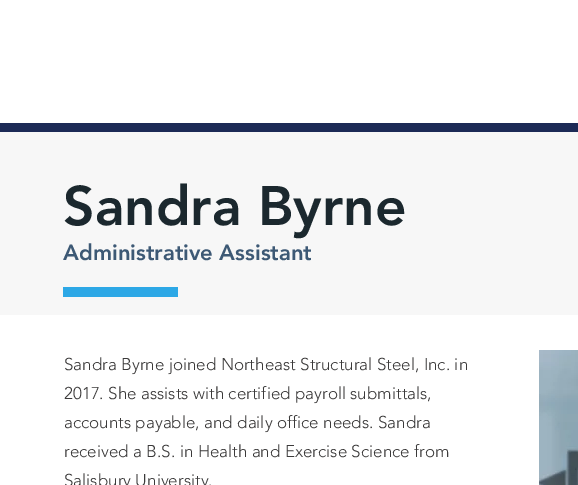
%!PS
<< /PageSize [578 485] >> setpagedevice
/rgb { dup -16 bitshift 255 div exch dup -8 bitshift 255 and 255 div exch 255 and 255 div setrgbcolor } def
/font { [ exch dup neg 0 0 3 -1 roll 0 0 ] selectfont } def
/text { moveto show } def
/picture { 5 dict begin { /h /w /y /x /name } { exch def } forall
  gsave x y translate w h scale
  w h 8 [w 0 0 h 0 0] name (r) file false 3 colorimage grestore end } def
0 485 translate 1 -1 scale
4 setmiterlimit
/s1 { /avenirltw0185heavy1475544-Black 55 font 16#1B282E rgb } def
/s2 { /avenirltw0185heavy1475544-Black 22 font 16#3D5975 rgb } def
/s3 { /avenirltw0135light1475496-Light 17 font 16#3B3A3A rgb } def
16#F7F7F7 rgb
0 0 578 485 rectfill
16#1C2A56 rgb
0 123 578 9 rectfill
16#FFFFFF rgb
0 0 578 123 rectfill
s1
(Sandra Byrne) 63 225 text
s2
(Administrative Assistant) 63 260 text
16#2DA8E6 rgb
63 287 115 10 rectfill
16#FFFFFF rgb
0 315 578 170 rectfill
s3
(Sandra Byrne joined Northeast Structural Steel, Inc. in) 64 370 text
(2017. She assists with certified payroll submittals,) 64 399 text
(accounts payable, and daily office needs. Sandra) 64 428 text
(received a B.S. in Health and Exercise Science from) 64 457 text
(Salisbury University.) 64 486 text
(pic1.raw) 539 350 39 135 picture
showpage
